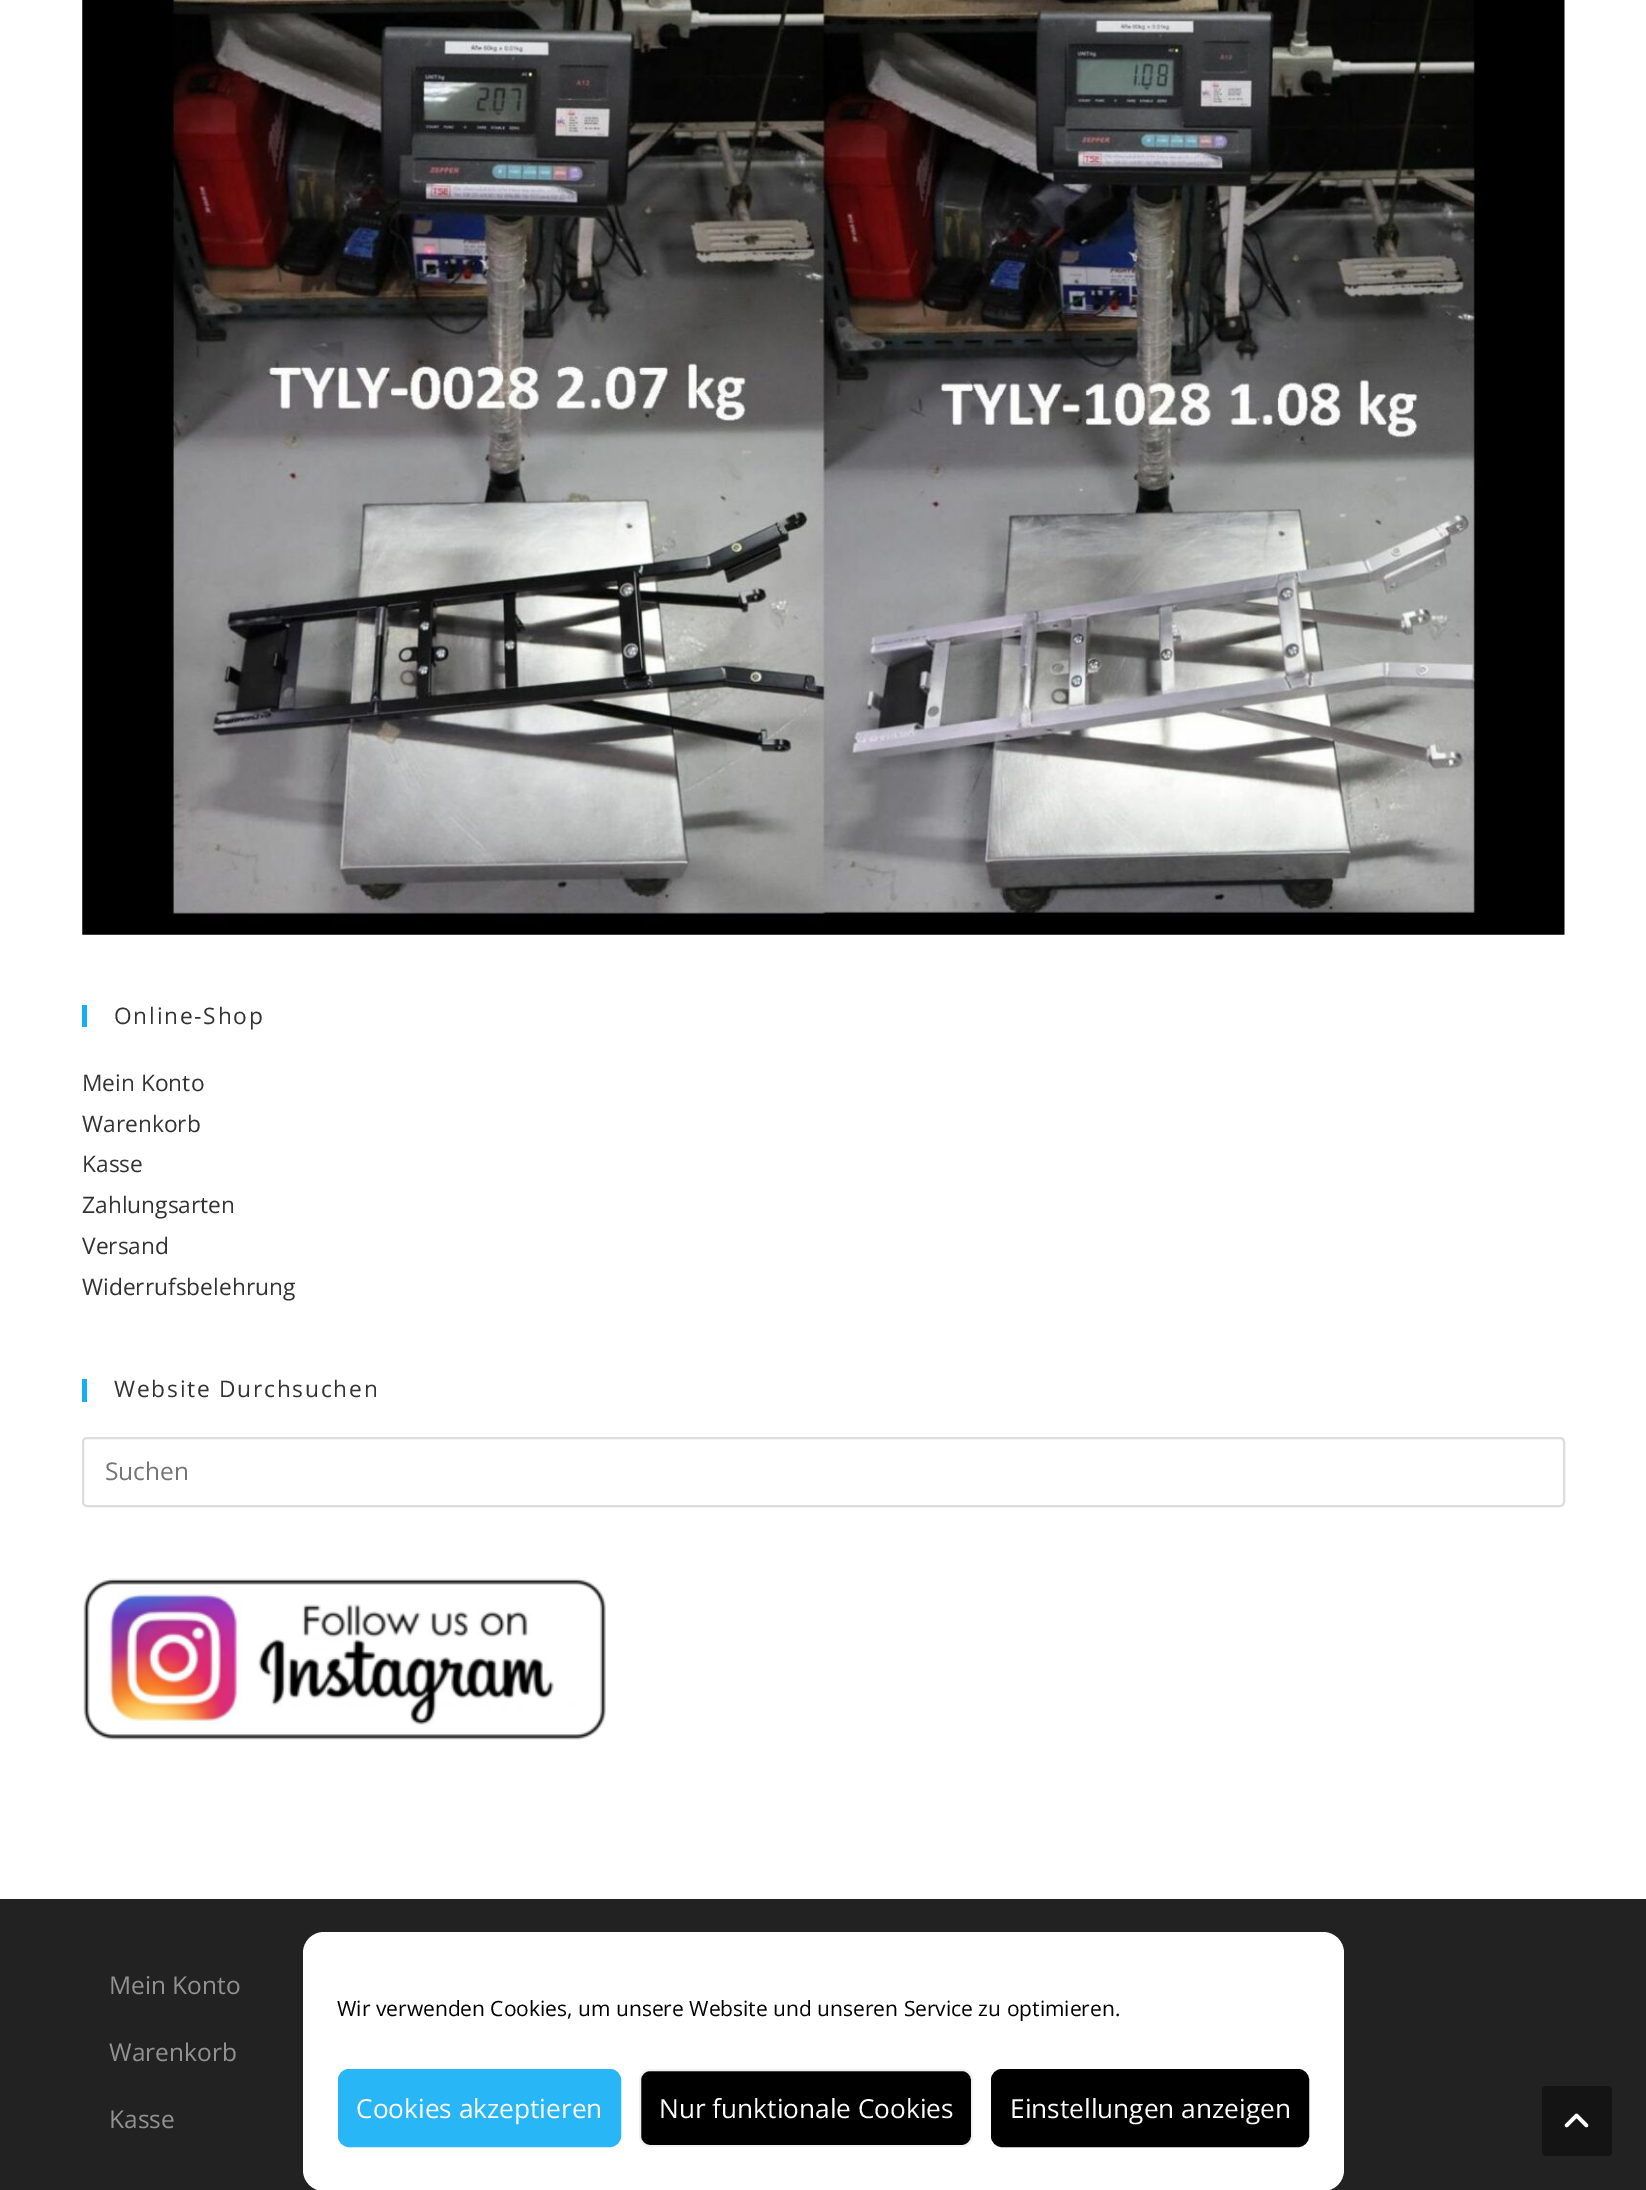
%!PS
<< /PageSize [1646 2190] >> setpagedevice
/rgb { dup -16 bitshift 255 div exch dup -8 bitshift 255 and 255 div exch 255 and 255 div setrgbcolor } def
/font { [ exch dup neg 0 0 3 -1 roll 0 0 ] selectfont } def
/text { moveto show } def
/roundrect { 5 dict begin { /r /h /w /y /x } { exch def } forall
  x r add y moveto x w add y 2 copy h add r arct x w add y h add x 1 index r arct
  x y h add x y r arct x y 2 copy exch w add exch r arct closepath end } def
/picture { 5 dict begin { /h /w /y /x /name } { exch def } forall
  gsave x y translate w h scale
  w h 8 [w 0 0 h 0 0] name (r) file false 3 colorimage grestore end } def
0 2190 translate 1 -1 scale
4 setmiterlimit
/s1 { /OpenSans-Regular 22.75 font 16#333333 rgb } def
/s2 { /OpenSans-Regular 24.5 font 16#757575 rgb } def
/s3 { /OpenSans-Regular 24.5 font 16#929292 rgb } def
/s4 { /OpenSans-Regular 21 font 16#000000 rgb } def
/s5 { /OpenSans-Regular 26.25 font 16#FFFFFF rgb } def
16#FFFFFF rgb
0 0 1646 2190 rectfill
(pic1.raw) 82 0 1483 935 picture
16#13AFF0 rgb
82 1005 5 22 rectfill
/OpenSans-Regular 22.75 font
16#333333 rgb
114 1024 moveto 1.75 0 (Online-Shop) ashow
(Mein Konto) 82 1091 text
(Warenkorb) 82 1132 text
(Kasse) 82 1172 text
(Zahlungsarten) 82 1213 text
(Versand) 82 1254 text
(Widerrufsbelehrung) 82 1295 text
16#13AFF0 rgb
82 1379 5 23 rectfill
16#333333 rgb
114 1397 moveto 1.75 0 (Website Durchsuchen) ashow
16#DDDDDD rgb
2 setlinewidth
83 1438 1481 68 4 roundrect stroke
s2
(Suchen) 105 1480 text
(pic2.raw) 83 1578 523 162 picture
16#222222 rgb
0 1899 1646 291 rectfill
s3
(Mein Konto) 109 1994 text
(Warenkorb) 109 2061 text
(Kasse) 109 2128 text
16#FFFFFF rgb
303 1932 1041 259 21 roundrect fill
s4
(Wir verwenden Cookies, um unsere Website und unseren Service zu optimieren.) 337 2016 text
16#29B6F6 rgb
339 2070 281 76 10 roundrect gsave fill grestore
stroke
s5
(Cookies akzeptieren) 356 2118 text
16#000000 rgb
640 2070 332 76 10 roundrect gsave fill grestore
16#F1F1F1 rgb
stroke
s5
(Nur funktionale Cookies) 659 2118 text
16#000000 rgb
992 2070 316 76 10 roundrect gsave fill grestore
stroke
s5
(Einstellungen anzeigen) 1010 2118 text
16#141414 rgb
1542 2086 70 70 4 roundrect fill
(pic3.raw) 1564 2113 25 15 picture
showpage
